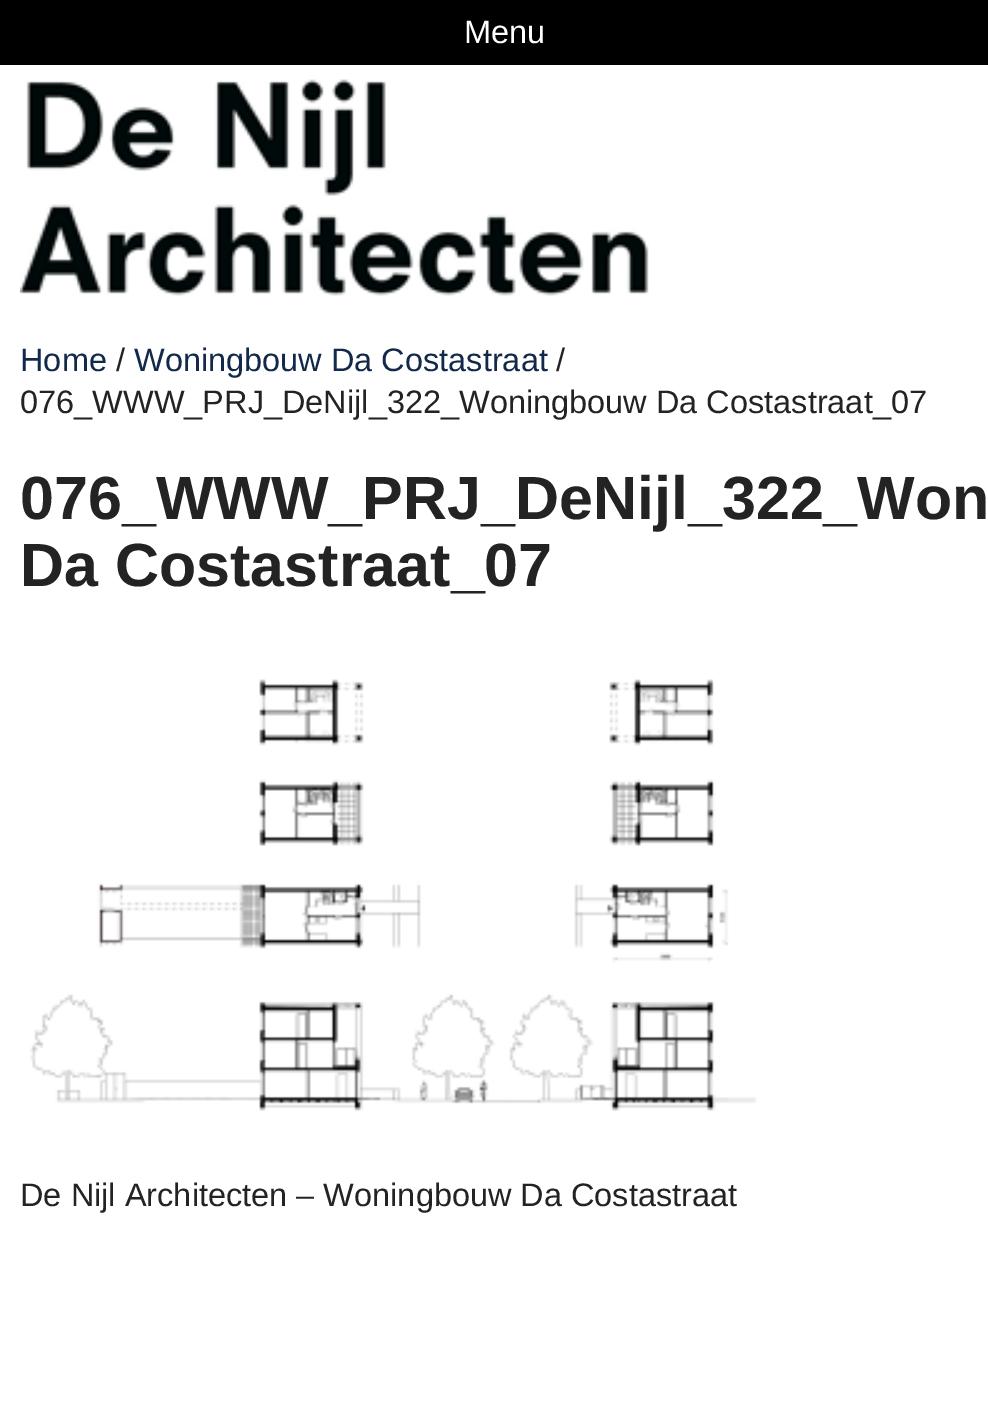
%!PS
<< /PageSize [988 1424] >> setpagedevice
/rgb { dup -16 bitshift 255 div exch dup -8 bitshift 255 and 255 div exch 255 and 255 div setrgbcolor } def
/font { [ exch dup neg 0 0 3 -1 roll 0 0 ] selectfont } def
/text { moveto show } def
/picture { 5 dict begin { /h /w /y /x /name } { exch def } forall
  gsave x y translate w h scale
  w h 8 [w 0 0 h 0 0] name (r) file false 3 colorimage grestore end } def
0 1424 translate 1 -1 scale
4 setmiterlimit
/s1 { /LiberationSans-Regular 32.5 font 16#FFFFFF rgb } def
/s2 { /LiberationSans-Regular 32.5 font 16#12294A rgb } def
/s3 { /LiberationSans-Regular 32.5 font 16#232323 rgb } def
/s4 { /LiberationSans-Bold 61 font 16#232323 rgb } def
16#FFFFFF rgb
0 0 988 1424 rectfill
16#000000 rgb
0 0 988 65 rectfill
s1
(Menu) 464 43 text
(pic1.raw) 20 79 629 217 picture
s2
(Home) 20 371 text
s3
(/) 116 371 text
s2
(Woningbouw Da Costastraat) 134 371 text
s3
(/) 556 371 text
(076_WWW_PRJ_DeNijl_322_Woningbouw Da Costastraat_07) 20 413 text
s4
(076_WWW_PRJ_DeNijl_322_Won) 20 519 text
(Da Costastraat_07) 20 586 text
(pic2.raw) 30 679 727 432 picture
s3
(De Nijl Architecten – Woningbouw Da Costastraat) 20 1206 text
showpage
